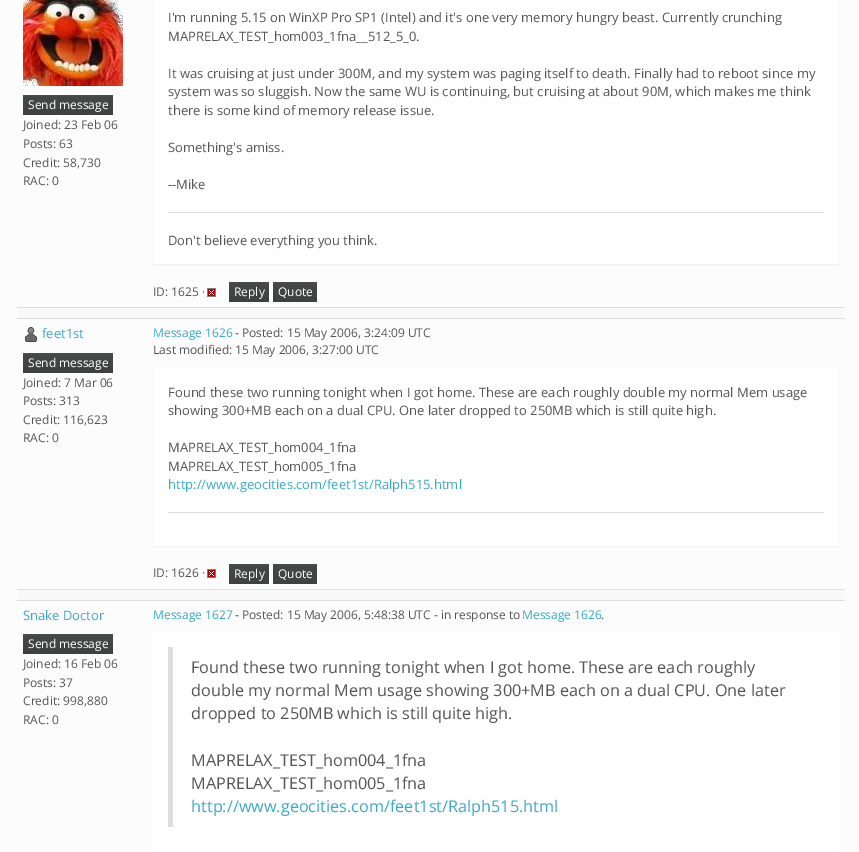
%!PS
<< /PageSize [859 852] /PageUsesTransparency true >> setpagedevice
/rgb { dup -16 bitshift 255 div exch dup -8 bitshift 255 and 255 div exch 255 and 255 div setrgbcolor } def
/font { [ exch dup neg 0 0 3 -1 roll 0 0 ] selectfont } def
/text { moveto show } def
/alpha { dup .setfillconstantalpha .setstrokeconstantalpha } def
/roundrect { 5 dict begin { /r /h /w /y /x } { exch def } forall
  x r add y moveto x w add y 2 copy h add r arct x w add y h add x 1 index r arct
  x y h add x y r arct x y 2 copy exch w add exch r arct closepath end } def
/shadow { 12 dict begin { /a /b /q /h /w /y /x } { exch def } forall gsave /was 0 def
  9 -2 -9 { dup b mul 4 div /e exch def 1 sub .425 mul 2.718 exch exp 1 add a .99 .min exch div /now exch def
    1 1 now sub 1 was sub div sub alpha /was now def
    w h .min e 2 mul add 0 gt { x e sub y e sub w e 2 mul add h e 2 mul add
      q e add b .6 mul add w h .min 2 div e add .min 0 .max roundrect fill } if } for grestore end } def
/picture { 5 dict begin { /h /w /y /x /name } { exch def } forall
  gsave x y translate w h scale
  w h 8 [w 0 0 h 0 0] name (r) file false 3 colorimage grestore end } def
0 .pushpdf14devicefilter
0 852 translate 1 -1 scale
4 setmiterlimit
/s1 { /OpenSans-Regular 12 font 16#FFFFFF rgb } def
/s2 { /OpenSans-Regular 12 font 16#555555 rgb } def
/s3 { /OpenSans-Regular 13 font 16#555555 rgb } def
/s4 { /OpenSans-Regular 13 font 16#39AAC6 rgb } def
/s5 { /OpenSans-Regular 12 font 16#39AAC6 rgb } def
/s6 { /OpenSans-Regular 16.25 font 16#555555 rgb } def
/s7 { /OpenSans-Regular 16.25 font 16#39AAC6 rgb } def
16#FCFCFC rgb
0 0 859 852 rectfill
(pic1.raw) 23 0 100 86 picture
gsave 23 95 moveto 113 95 lineto 113 115 lineto 23 115 lineto closepath clip newpath
<< /ShadingType 2 /ColorSpace /DeviceRGB /Coords [68 95 68 115] /Extend [true true] /Function << /FunctionType 3 /Domain [0 1] /Functions [<< /FunctionType 2 /Domain [0 1] /C0 [0.31 0.318 0.318] /C1 [0.278 0.286 0.286] /N 1 >> << /FunctionType 2 /Domain [0 1] /C0 [0.278 0.286 0.286] /C1 [0.247 0.255 0.255] /N 1 >>] /Bounds [0.06] /Encode [0 1 0 1] >> >> shfill grestore
s1
(Send message) 28 109 text
s2
(Joined: 23 Feb 06) 23 129 text
(Posts: 63) 23 148 text
(Credit: 58,730) 23 167 text
(RAC: 0) 23 185 text
16#000000 rgb
153 -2 686 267 0 0.5 0.05 shadow
16#FFFFFF rgb
153 0 686 264 rectfill
s3
(I'm running 5.15 on WinXP Pro SP1 \(Intel\) and it's one very memory hungry beast. Currently crunching) 168 22 text
(MAPRELAX_TEST_hom003_1fna__512_5_0.) 168 41 text
(It was cruising at just under 300M, and my system was paging itself to death. Finally had to reboot since my) 168 78 text
(system was so sluggish. Now the same WU is continuing, but cruising at about 90M, which makes me think) 168 96 text
(there is some kind of memory release issue.) 168 115 text
(Something's amiss.) 168 152 text
(--Mike) 168 189 text
16#DDDDDD rgb
168 212 656 1 rectfill
s3
(Don't believe everything you think.) 168 245 text
s2
(ID: 1625 ·) 153 296 text
(pic2.raw) 207 288 9 9 picture
gsave 229 282 moveto 269 282 lineto 269 302 lineto 229 302 lineto closepath clip newpath
<< /ShadingType 2 /ColorSpace /DeviceRGB /Coords [249 282 249 302] /Extend [true true] /Function << /FunctionType 3 /Domain [0 1] /Functions [<< /FunctionType 2 /Domain [0 1] /C0 [0.31 0.318 0.318] /C1 [0.278 0.286 0.286] /N 1 >> << /FunctionType 2 /Domain [0 1] /C0 [0.278 0.286 0.286] /C1 [0.247 0.255 0.255] /N 1 >>] /Bounds [0.06] /Encode [0 1 0 1] >> >> shfill grestore
s1
(Reply) 234 296 text
gsave 273 282 moveto 317 282 lineto 317 302 lineto 273 302 lineto closepath clip newpath
<< /ShadingType 2 /ColorSpace /DeviceRGB /Coords [295 282 295 302] /Extend [true true] /Function << /FunctionType 3 /Domain [0 1] /Functions [<< /FunctionType 2 /Domain [0 1] /C0 [0.31 0.318 0.318] /C1 [0.278 0.286 0.286] /N 1 >> << /FunctionType 2 /Domain [0 1] /C0 [0.278 0.286 0.286] /C1 [0.247 0.255 0.255] /N 1 >>] /Bounds [0.06] /Encode [0 1 0 1] >> >> shfill grestore
(Quote) 278 296 text
16#F9F9F9 rgb
18 308 826 10 rectfill
16#DDDDDD rgb
17 307 828 1 rectfill
(pic3.raw) 25 327 12 15 picture
s4
(feet1st) 42 338 text
gsave 23 353 moveto 113 353 lineto 113 373 lineto 23 373 lineto closepath clip newpath
<< /ShadingType 2 /ColorSpace /DeviceRGB /Coords [68 353 68 373] /Extend [true true] /Function << /FunctionType 3 /Domain [0 1] /Functions [<< /FunctionType 2 /Domain [0 1] /C0 [0.31 0.318 0.318] /C1 [0.278 0.286 0.286] /N 1 >> << /FunctionType 2 /Domain [0 1] /C0 [0.278 0.286 0.286] /C1 [0.247 0.255 0.255] /N 1 >>] /Bounds [0.06] /Encode [0 1 0 1] >> >> shfill grestore
s1
(Send message) 28 367 text
s2
(Joined: 7 Mar 06) 23 387 text
(Posts: 313) 23 405 text
(Credit: 116,623) 23 424 text
(RAC: 0) 23 442 text
16#DDDDDD rgb
17 318 828 1 rectfill
s5
(Message 1626) 153 337 text
s2
(- Posted: 15 May 2006, 3:24:09 UTC) 235 337 text
(Last modified: 15 May 2006, 3:27:00 UTC) 153 354 text
16#000000 rgb
153 369 686 178 0 0.5 0.05 shadow
16#FFFFFF rgb
153 368 686 178 rectfill
s3
(Found these two running tonight when I got home. These are each roughly double my normal Mem usage) 168 397 text
(showing 300+MB each on a dual CPU. One later dropped to 250MB which is still quite high.) 168 415 text
(MAPRELAX_TEST_hom004_1fna) 168 452 text
(MAPRELAX_TEST_hom005_1fna) 168 471 text
s4
(http://www.geocities.com/feet1st/Ralph515.html) 168 489 text
16#DDDDDD rgb
168 512 656 1 rectfill
s2
(ID: 1626 ·) 153 577 text
(pic2.raw) 207 569 9 9 picture
gsave 229 564 moveto 269 564 lineto 269 584 lineto 229 584 lineto closepath clip newpath
<< /ShadingType 2 /ColorSpace /DeviceRGB /Coords [249 564 249 584] /Extend [true true] /Function << /FunctionType 3 /Domain [0 1] /Functions [<< /FunctionType 2 /Domain [0 1] /C0 [0.31 0.318 0.318] /C1 [0.278 0.286 0.286] /N 1 >> << /FunctionType 2 /Domain [0 1] /C0 [0.278 0.286 0.286] /C1 [0.247 0.255 0.255] /N 1 >>] /Bounds [0.06] /Encode [0 1 0 1] >> >> shfill grestore
s1
(Reply) 234 578 text
gsave 273 564 moveto 317 564 lineto 317 584 lineto 273 584 lineto closepath clip newpath
<< /ShadingType 2 /ColorSpace /DeviceRGB /Coords [295 564 295 584] /Extend [true true] /Function << /FunctionType 3 /Domain [0 1] /Functions [<< /FunctionType 2 /Domain [0 1] /C0 [0.31 0.318 0.318] /C1 [0.278 0.286 0.286] /N 1 >> << /FunctionType 2 /Domain [0 1] /C0 [0.278 0.286 0.286] /C1 [0.247 0.255 0.255] /N 1 >>] /Bounds [0.06] /Encode [0 1 0 1] >> >> shfill grestore
(Quote) 278 578 text
16#F9F9F9 rgb
18 590 826 10 rectfill
16#DDDDDD rgb
17 589 828 1 rectfill
s4
(Snake Doctor) 23 620 text
gsave 23 634 moveto 113 634 lineto 113 654 lineto 23 654 lineto closepath clip newpath
<< /ShadingType 2 /ColorSpace /DeviceRGB /Coords [68 634 68 654] /Extend [true true] /Function << /FunctionType 3 /Domain [0 1] /Functions [<< /FunctionType 2 /Domain [0 1] /C0 [0.31 0.318 0.318] /C1 [0.278 0.286 0.286] /N 1 >> << /FunctionType 2 /Domain [0 1] /C0 [0.278 0.286 0.286] /C1 [0.247 0.255 0.255] /N 1 >>] /Bounds [0.06] /Encode [0 1 0 1] >> >> shfill grestore
s1
(Send message) 28 648 text
s2
(Joined: 16 Feb 06) 23 668 text
(Posts: 37) 23 687 text
(Credit: 998,880) 23 705 text
(RAC: 0) 23 724 text
16#DDDDDD rgb
17 600 828 1 rectfill
s5
(Message 1627) 153 619 text
s2
(- Posted: 15 May 2006, 5:48:38 UTC - in response to) 235 619 text
s5
(Message 1626) 522 619 text
s2
(.) 601 619 text
16#FFFFFF rgb
153 632 686 220 rectfill
16#DDDDDD rgb
168 647 5 180 rectfill
s6
(Found these two running tonight when I got home. These are each roughly) 191 673 text
(double my normal Mem usage showing 300+MB each on a dual CPU. One later) 191 696 text
(dropped to 250MB which is still quite high.) 191 719 text
(MAPRELAX_TEST_hom004_1fna) 191 766 text
(MAPRELAX_TEST_hom005_1fna) 191 789 text
s7
(http://www.geocities.com/feet1st/Ralph515.html) 191 812 text
.poppdf14devicefilter showpage
